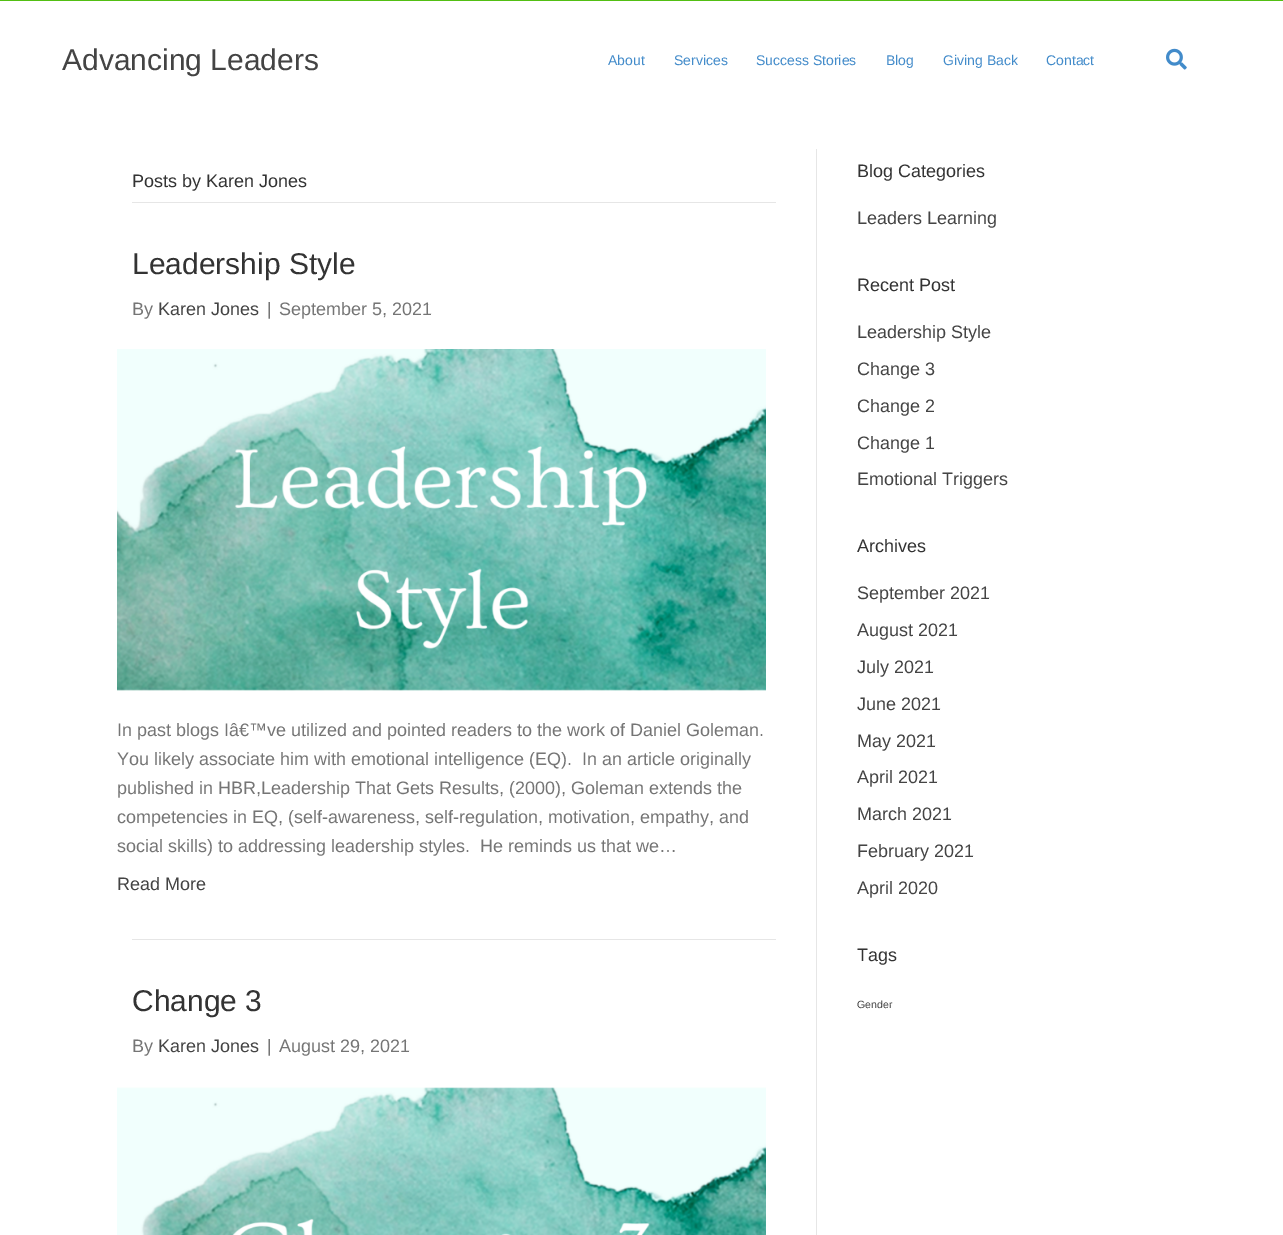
%!PS
<< /PageSize [1283 1235] >> setpagedevice
/rgb { dup -16 bitshift 255 div exch dup -8 bitshift 255 and 255 div exch 255 and 255 div setrgbcolor } def
/font { [ exch dup neg 0 0 3 -1 roll 0 0 ] selectfont } def
/text { moveto show } def
/picture { 5 dict begin { /h /w /y /x /name } { exch def } forall
  gsave x y translate w h scale
  w h 8 [w 0 0 h 0 0] name (r) file false 3 colorimage grestore end } def
0 1235 translate 1 -1 scale
4 setmiterlimit
/s1 { /LiberationSans-Regular 30 font 16#444444 rgb } def
/s2 { /LiberationSans-Regular 14 font 16#428BCA rgb } def
/s3 { /LiberationSans-Regular 18 font 16#333333 rgb } def
/s4 { /LiberationSans-Regular 30 font 16#333333 rgb } def
/s5 { /LiberationSans-Regular 18 font 16#757575 rgb } def
/s6 { /LiberationSans-Regular 18 font 16#444444 rgb } def
/s7 { /LiberationSans-Regular 10.5 font 16#444444 rgb } def
16#FFFFFF rgb
0 0 1283 1235 rectfill
16#52BF13 rgb
0 0 1283 1 rectfill
s1
(Advancing Leaders) 62 70 text
s2
(About) 608 65 text
(Services) 674 65 text
(Success Stories) 756 65 text
(Blog) 886 65 text
(Giving Back) 943 65 text
(Contact) 1046 65 text
(pic1.raw) 1166 48 21 22 picture
16#E6E6E6 rgb
816 149 1 1086 rectfill
132 202 644 1 rectfill
s3
(Posts by Karen Jones) 132 187 text
16#E6E6E6 rgb
132 939 644 1 rectfill
s4
(Leadership Style) 132 274 text
s5
(By) 132 315 text
s6
(Karen Jones) 158 315 text
s5
(|) 267 315 text
(September 5, 2021) 279 315 text
(pic2.raw) 117 349 649 342 picture
(In past blogs Iâ€™ve utilized and pointed readers to the work of Daniel Goleman.) 117 736 text
(You likely associate him with emotional intelligence \(EQ\).  In an article originally) 117 765 text
(published in HBR,Leadership That Gets Results, \(2000\), Goleman extends the) 117 794 text
(competencies in EQ, \(self-awareness, self-regulation, motivation, empathy, and) 117 823 text
(social skills\) to addressing leadership styles.  He reminds us that we…) 117 852 text
s6
(Read More) 117 890 text
s4
(Change 3) 132 1011 text
s5
(By) 132 1052 text
s6
(Karen Jones) 158 1052 text
s5
(|) 267 1052 text
(August 29, 2021) 279 1052 text
(pic3.raw) 117 1087 649 148 picture
s3
(Blog Categories) 857 177 text
s6
(Leaders Learning) 857 224 text
s3
(Recent Post) 857 291 text
s6
(Leadership Style) 857 338 text
(Change 3) 857 375 text
(Change 2) 857 412 text
(Change 1) 857 449 text
(Emotional Triggers) 857 485 text
s3
(Archives) 857 552 text
s6
(September 2021) 857 599 text
(August 2021) 857 636 text
(July 2021) 857 673 text
(June 2021) 857 710 text
(May 2021) 857 747 text
(April 2021) 857 783 text
(March 2021) 857 820 text
(February 2021) 857 857 text
(April 2020) 857 894 text
s3
(Tags) 857 961 text
s7
(Gender) 857 1008 text
showpage
